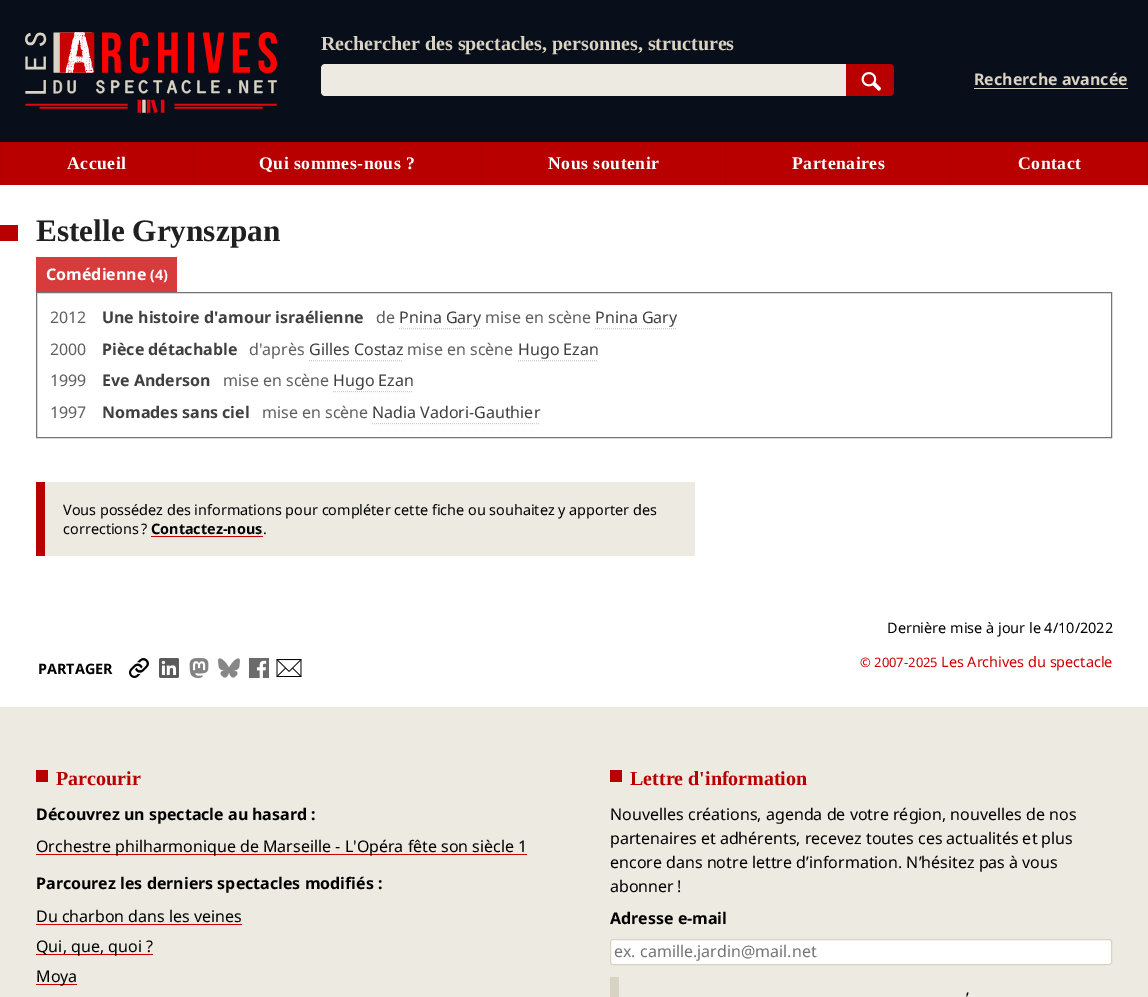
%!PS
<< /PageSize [1148 997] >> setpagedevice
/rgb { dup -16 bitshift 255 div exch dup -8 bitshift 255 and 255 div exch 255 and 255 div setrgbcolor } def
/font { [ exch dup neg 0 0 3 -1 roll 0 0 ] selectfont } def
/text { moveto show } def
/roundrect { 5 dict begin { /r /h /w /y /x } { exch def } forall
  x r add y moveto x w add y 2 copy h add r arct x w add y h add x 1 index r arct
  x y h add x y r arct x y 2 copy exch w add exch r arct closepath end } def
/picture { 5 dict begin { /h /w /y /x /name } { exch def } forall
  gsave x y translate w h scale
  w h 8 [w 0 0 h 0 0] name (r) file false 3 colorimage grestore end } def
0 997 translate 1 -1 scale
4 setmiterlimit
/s1 { /LiberationSerif-Bold 20 font 16#D9D3C3 rgb } def
/s2 { /NotoSans-Bold 16 font 16#D9D3C3 rgb } def
/s3 { /LiberationSerif-Bold 31.25 font 16#202020 rgb } def
/s4 { /NotoSans-Bold 16 font 16#FFFFFF rgb } def
/s5 { /NotoSans-Bold 14.4 font 16#FFFFFF rgb } def
/s6 { /NotoSans-Regular 16 font 16#606060 rgb } def
/s7 { /NotoSans-Bold 16 font 16#404040 rgb } def
/s8 { /NotoSans-Regular 16 font 16#404040 rgb } def
/s9 { /NotoSans-Regular 14.4 font 16#000000 rgb } def
/s10 { /NotoSans-Bold 14.4 font 16#000000 rgb } def
/s11 { /NotoSans-Regular 13 font 16#CC0000 rgb } def
/s12 { /NotoSans-Regular 14.4 font 16#CC0000 rgb } def
/s13 { /LiberationSerif-Bold 20 font 16#B90000 rgb } def
/s14 { /NotoSans-Bold 16 font 16#000000 rgb } def
/s15 { /NotoSans-Regular 16 font 16#000000 rgb } def
/s16 { /NotoSans-Regular 16 font 16#757575 rgb } def
16#FFFFFF rgb
0 0 1148 997 rectfill
16#090E1B rgb
0 0 1148 142 rectfill
(pic1.raw) 25 32 252 81 picture
s1
(Rechercher des spectacles, personnes, structures) 321 50 text
16#EDEAE2 rgb
325 64 moveto 846 64 lineto 846 96 lineto 325 96 lineto 323 96 321 94 321 92 curveto 321 68 lineto 321 66 323 64 325 64 curveto closepath fill
16#B90000 rgb
846 64 moveto 890 64 lineto 892 64 894 66 894 68 curveto 894 92 lineto 894 94 892 96 890 96 curveto 846 96 lineto closepath fill
(pic2.raw) 861 72 20 19 picture
s2
(Recherche avancée) 974 85 text
974 88 154 1 rectfill
16#B90000 rgb
1 142 1146 43 rectfill
16#B00000 rgb
192 142 1 43 rectfill
0 142 1 43 rectfill
/LiberationSerif-Bold 17.75 font
16#FFFFFF rgb
67 169 moveto 0.5 0 (Accueil) ashow
16#B00000 rgb
481 142 1 43 rectfill
16#FFFFFF rgb
259 169 moveto 0.5 0 (Qui sommes-nous ?) ashow
16#B00000 rgb
725 142 1 43 rectfill
16#FFFFFF rgb
548 169 moveto 0.5 0 (Nous soutenir) ashow
16#B00000 rgb
951 142 1 43 rectfill
16#FFFFFF rgb
792 169 moveto 0.5 0 (Partenaires) ashow
16#B00000 rgb
1147 142 1 43 rectfill
16#FFFFFF rgb
1018 169 moveto 0.5 0 (Contact) ashow
16#B90000 rgb
0 225 18 16 rectfill
s3
(Estelle Grynszpan) 36 241 text
16#D83B3B rgb
36 257 141 35 rectfill
s4
(Comédienne) 46 280 text
s5
(\(4\)) 150 280 text
16#757575 rgb
36.5 292.5 1075 145 rectstroke
s6
(2012) 50 323 text
s7
(Une histoire d'amour israélienne) 102 323 text
s6
(de) 376 323 text
s8
(Pnina Gary) 399 323 text
16#CCCCCC rgb
[1 1] 0 setdash
399 328.5 moveto 481 328.5 lineto stroke
s6
(mise en scène) 485 323 text
s8
(Pnina Gary) 595 323 text
16#CCCCCC rgb
595 328.5 moveto 677 328.5 lineto stroke
s6
(2000) 50 355 text
s7
(Pièce détachable) 102 355 text
s6
(d'après) 249 355 text
s8
(Gilles Costaz) 309 355 text
16#CCCCCC rgb
309 360.5 moveto 403 360.5 lineto stroke
s6
(mise en scène) 407 355 text
s8
(Hugo Ezan) 518 355 text
16#CCCCCC rgb
518 360.5 moveto 598 360.5 lineto stroke
s6
(1999) 50 386 text
s7
(Eve Anderson) 102 386 text
s6
(mise en scène) 223 386 text
s8
(Hugo Ezan) 333 386 text
16#CCCCCC rgb
333 391.5 moveto 413 391.5 lineto stroke
s6
(1997) 50 418 text
s7
(Nomades sans ciel) 102 418 text
s6
(mise en scène) 262 418 text
s8
(Nadia Vadori-Gauthier) 372 418 text
16#CCCCCC rgb
372 423.5 moveto 540 423.5 lineto stroke
16#EDEAE2 rgb
45 482 650 74 rectfill
16#B90000 rgb
36 482 9 74 rectfill
s9
(Vous possédez des informations pour compléter cette fiche ou souhaitez y apporter des) 63 515 text
(corrections ?) 63 534 text
s10
(Contactez-nous) 151 534 text
16#CC0000 rgb
151 536 112 1 rectfill
s9
(.) 263 534 text
s10
(PARTAGER) 38 674 text
(pic3.raw) 129 658 20 20 picture
(pic4.raw) 159 658 20 20 picture
(pic5.raw) 189 658 20 20 picture
(pic6.raw) 218 658 22 20 picture
(pic7.raw) 249 658 20 20 picture
(pic8.raw) 276 659 26 18 picture
s9
(Dernière mise à jour le 4/10/2022) 887 633 text
s11
(© 2007-2025) 860 667 text
s12
(Les Archives du spectacle) 941 667 text
16#EDEAE2 rgb
0 707 1148 290 rectfill
16#B90000 rgb
36 770 12 12 rectfill
s13
(Parcourir) 56 785 text
s14
(Découvrez un spectacle au hasard :) 36 820 text
16#CC0000 rgb
36 854 491 1 rectfill
s15
(Orchestre philharmonique de Marseille - L'Opéra fête son siècle 1) 36 852 text
s14
(Parcourez les derniers spectacles modifiés :) 36 889 text
s15
(Du charbon dans les veines) 36 922 text
16#CC0000 rgb
36 924 206 1 rectfill
36 954 117 1 rectfill
s15
(Qui, que, quoi ?) 36 952 text
16#CC0000 rgb
36 984 41 1 rectfill
s15
(Moya) 36 982 text
16#B90000 rgb
610 770 12 12 rectfill
s13
(Lettre d'information) 630 785 text
s15
(Nouvelles créations, agenda de votre région, nouvelles de nos) 610 820 text
(partenaires et adhérents, recevez toutes ces actualités et plus) 610 844 text
(encore dans notre lettre d’information. N’hésitez pas à vous) 610 868 text
(abonner !) 610 892 text
s14
(Adresse e-mail) 610 924 text
16#FFFFFF rgb
610.5 939.5 501 25 2.5 roundrect gsave fill grestore
16#D9D3C3 rgb
[] 0 setdash
stroke
s16
(ex. camille.jardin@mail.net) 614 957 text
16#D9D3C3 rgb
610 977 9 20 rectfill
s15
(’) 966 1004 text
showpage
